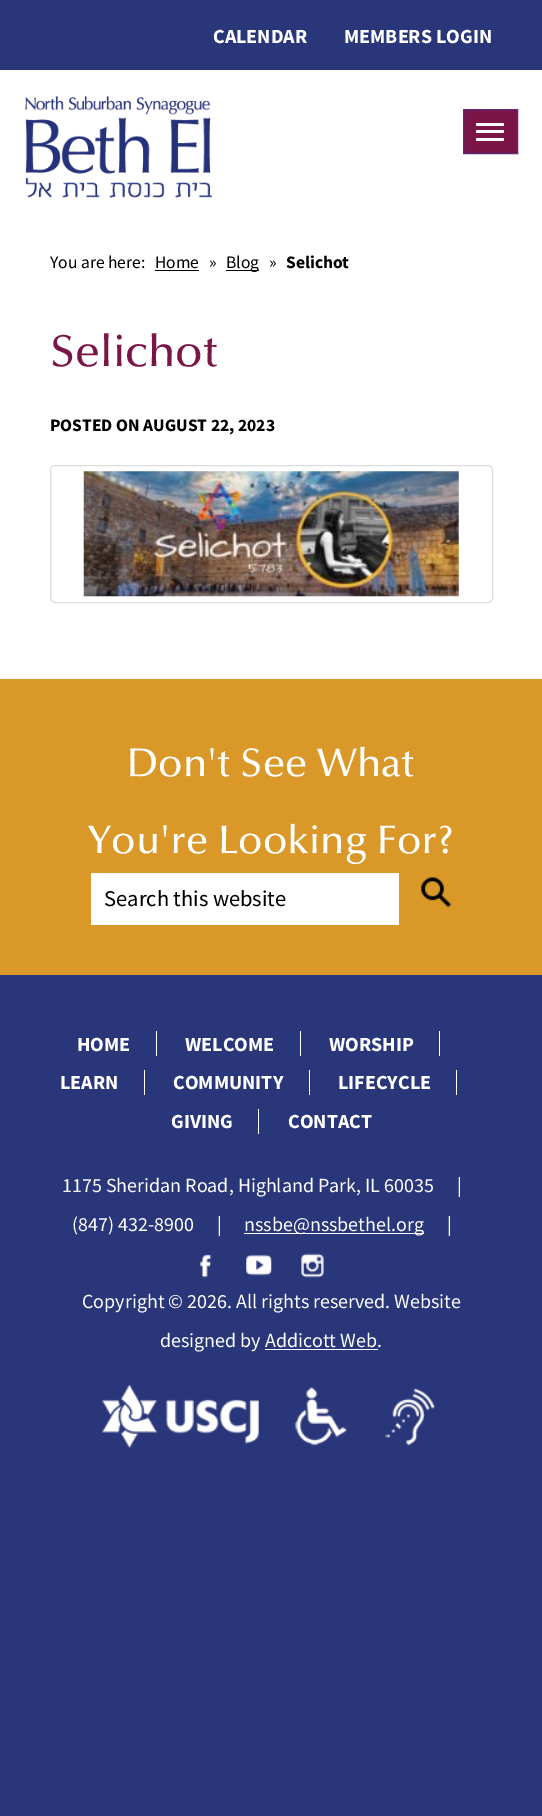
%!PS
<< /PageSize [542 1816] >> setpagedevice
/rgb { dup -16 bitshift 255 div exch dup -8 bitshift 255 and 255 div exch 255 and 255 div setrgbcolor } def
/font { [ exch dup neg 0 0 3 -1 roll 0 0 ] selectfont } def
/text { moveto show } def
/roundrect { 5 dict begin { /r /h /w /y /x } { exch def } forall
  x r add y moveto x w add y 2 copy h add r arct x w add y h add x 1 index r arct
  x y h add x y r arct x y 2 copy exch w add exch r arct closepath end } def
/picture { 5 dict begin { /h /w /y /x /name } { exch def } forall
  gsave x y translate w h scale
  w h 8 [w 0 0 h 0 0] name (r) file false 3 colorimage grestore end } def
0 1816 translate 1 -1 scale
4 setmiterlimit
/s1 { /SourceSansPro-Bold 20 font 16#FFFFFF rgb } def
/s2 { /SourceSansPro-Regular 17.5 font 16#000000 rgb } def
/s3 { /SourceSansPro-Bold 17.5 font 16#000000 rgb } def
/s4 { /Optima-Medium 45 font 16#791547 rgb } def
/s5 { /Optima-Medium 40 font 16#FFFFFF rgb } def
/s6 { /SourceSansPro-Regular 22.5 font 16#000000 rgb } def
/s7 { /SourceSansPro-Regular 20 font 16#FFFFFF rgb } def
16#293679 rgb
0 0 542 1816 rectfill
s1
(CALENDAR) 213 43 text
(MEMBERS LOGIN) 344 43 text
0 70 542 609 rectfill
(pic1.raw) 25 96 188 102 picture
16#791547 rgb
463.5 109.5 moveto 517.5 109.5 lineto 517.5 153.5 lineto 463.5 153.5 lineto closepath gsave fill grestore
16#5A2C80 rgb
stroke
16#FFFFFF rgb
476 123 28 3 1.5 roundrect fill
476 130 28 3 1.5 roundrect fill
476 138 28 3 1.5 roundrect fill
s2
(You are here:) 50 268 text
(Home) 155 268 text
155 270 44 1 rectfill
(») 209 268 text
226 270 33 1 rectfill
(Blog) 226 268 text
(») 269 268 text
s3
(Selichot) 286 268 text
s4
(Selichot) 50 366 text
s3
(POSTED ON AUGUST 22, 2023) 50 431 text
16#DDDDDD rgb
50.5 465.5 442 137 4.5 roundrect stroke
(pic2.raw) 83 471 376 126 picture
16#D99828 rgb
0 679 542 296 rectfill
s5
(Don't See What) 127 776 text
(You're Looking For?) 87 853 text
91 873 308 52 rectfill
s6
(Search this website) 104 906 text
(pic3.raw) 421 877 31 31 picture
s1
(HOME) 77 1051 text
156 1031 1 25 rectfill
(WELCOME) 185 1051 text
300 1031 1 25 rectfill
(WORSHIP) 329 1051 text
439 1031 1 25 rectfill
(LEARN) 60 1089 text
144 1070 1 25 rectfill
(COMMUNITY) 173 1089 text
309 1070 1 25 rectfill
(LIFECYCLE) 338 1089 text
456 1070 1 25 rectfill
(GIVING) 171 1128 text
258 1109 1 25 rectfill
(CONTACT) 288 1128 text
s7
(1175 Sheridan Road, Highland Park, IL 60035) 62 1192 text
(|) 457 1192 text
(\(847\) 432-8900) 72 1231 text
(|) 217 1231 text
244 1233 180 1 rectfill
(nssbe@nssbethel.org) 244 1231 text
(|) 447 1231 text
(pic4.raw) 199 1254 13 24 picture
(pic5.raw) 246 1254 26 22 picture
(pic6.raw) 301 1253 23 25 picture
(Copyright © 2026. All rights reserved. Website) 82 1308 text
(designed by Addicott Web.) 160 1347 text
265 1349 113 1 rectfill
(pic7.raw) 102 1385 157 63 picture
(pic8.raw) 294 1387 53 59 picture
(pic9.raw) 385 1388 51 58 picture
showpage
